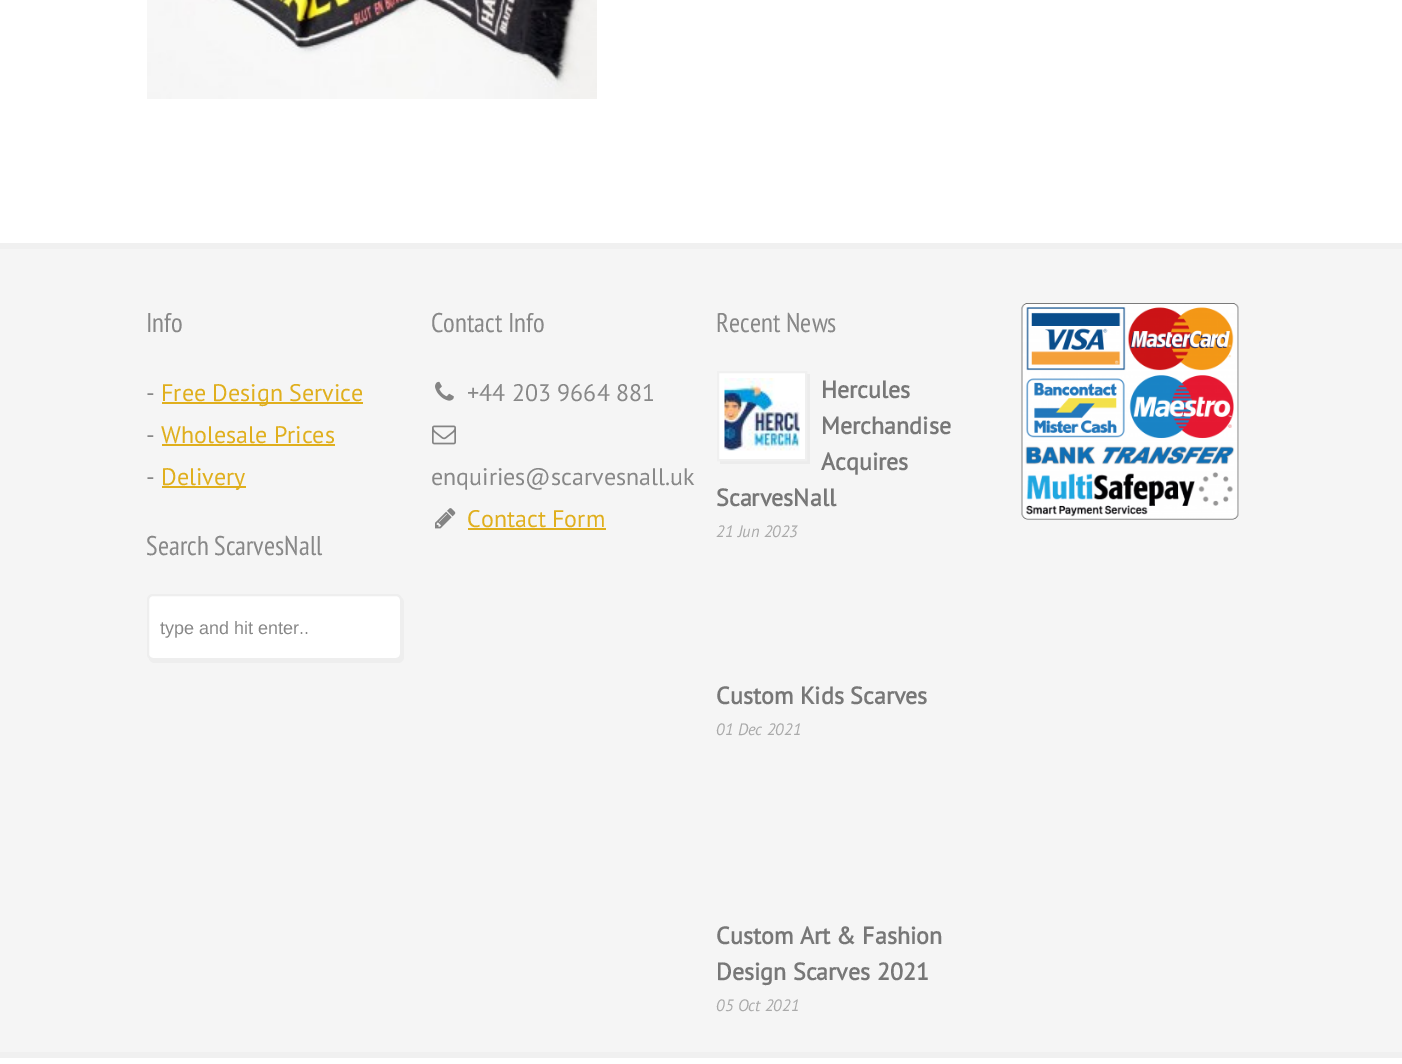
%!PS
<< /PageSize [1402 1064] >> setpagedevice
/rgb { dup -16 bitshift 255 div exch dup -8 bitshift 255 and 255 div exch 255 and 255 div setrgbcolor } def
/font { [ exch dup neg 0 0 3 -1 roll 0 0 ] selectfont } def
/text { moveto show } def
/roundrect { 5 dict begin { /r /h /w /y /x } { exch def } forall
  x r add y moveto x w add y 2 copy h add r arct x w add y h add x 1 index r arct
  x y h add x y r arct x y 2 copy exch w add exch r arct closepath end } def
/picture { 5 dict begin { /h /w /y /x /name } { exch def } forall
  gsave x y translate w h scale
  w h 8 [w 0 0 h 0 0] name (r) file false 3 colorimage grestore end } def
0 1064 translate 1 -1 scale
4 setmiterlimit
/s1 { /PTSansNarrow-Regular 27 font 16#888888 rgb } def
/s2 { /PTSans-Regular 24 font 16#888888 rgb } def
/s3 { /PTSans-Regular 24 font 16#E0AF1D rgb } def
/s4 { /LiberationSans-Regular 18 font 16#888888 rgb } def
/s5 { /PTSans-Bold 24 font 16#777777 rgb } def
/s6 { /PTSans-Italic 16.5 font 16#AAAAAA rgb } def
16#FFFFFF rgb
0 0 1402 1064 rectfill
(pic1.raw) 147 0 450 99 picture
16#F5F5F5 rgb
0 249 1402 803 rectfill
16#F0F0F0 rgb
0 243 1402 6 rectfill
s1
(Info) 146 332 text
s2
(-) 146 401 text
16#E0AF1D rgb
162 402 201 2 rectfill
(Free Design Service) 161 401 text
s2
(-) 146 443 text
s3
(Wholesale Prices) 161 443 text
162 444 173 2 rectfill
s2
(-) 146 485 text
16#E0AF1D rgb
162 486 84 2 rectfill
(Delivery) 161 485 text
s1
(Search ScarvesNall) 146 555 text
16#EEEEEE rgb
149 659 moveto 150 661 152 663 155 663 curveto 398 663 lineto 401 663 404 660 404 657 curveto 404 603 lineto 404 601 403 599 402 598 curveto 402 654 lineto 402 657 399 660 396 660 curveto 153 660 lineto 152 660 150 660 149 659 curveto closepath fill
16#FFFFFF rgb
148 595 253 64 5 roundrect gsave fill grestore
16#EEEEEE rgb
2 setlinewidth
stroke
s4
(type and hit enter..) 160 634 text
s1
(Contact Info) 431 332 text
(pic2.raw) 435 381 19 20 picture
s2
(+44 203 9664 881) 467 401 text
(pic3.raw) 432 425 24 20 picture
(enquiries@scarvesnall.uk) 431 485 text
(pic4.raw) 435 508 21 21 picture
s3
(Contact Form) 467 527 text
468 528 138 2 rectfill
s1
(Recent News) 716 332 text
16#ECECEC rgb
720 460 moveto 720 464 lineto 810 464 lineto 810 374 lineto 807 374 lineto 807 460 lineto closepath fill
16#FFFFFF rgb
718 372 moveto 806 372 lineto 806 460 lineto 718 460 lineto closepath gsave fill grestore
16#F0F0F0 rgb
stroke
(pic5.raw) 724 378 76 73 picture
s5
(Hercules) 821 398 text
(Merchandise) 821 434 text
(Acquires) 821 470 text
(ScarvesNall) 716 506 text
s6
(21 Jun 2023) 716 537 text
s5
(Custom Kids Scarves) 716 704 text
s6
(01 Dec 2021) 716 735 text
s5
(Custom Art & Fashion) 716 944 text
(Design Scarves 2021) 716 980 text
s6
(05 Oct 2021) 716 1011 text
(pic6.raw) 1021 303 218 217 picture
16#F0F0F0 rgb
0 1052 1402 6 rectfill
showpage
